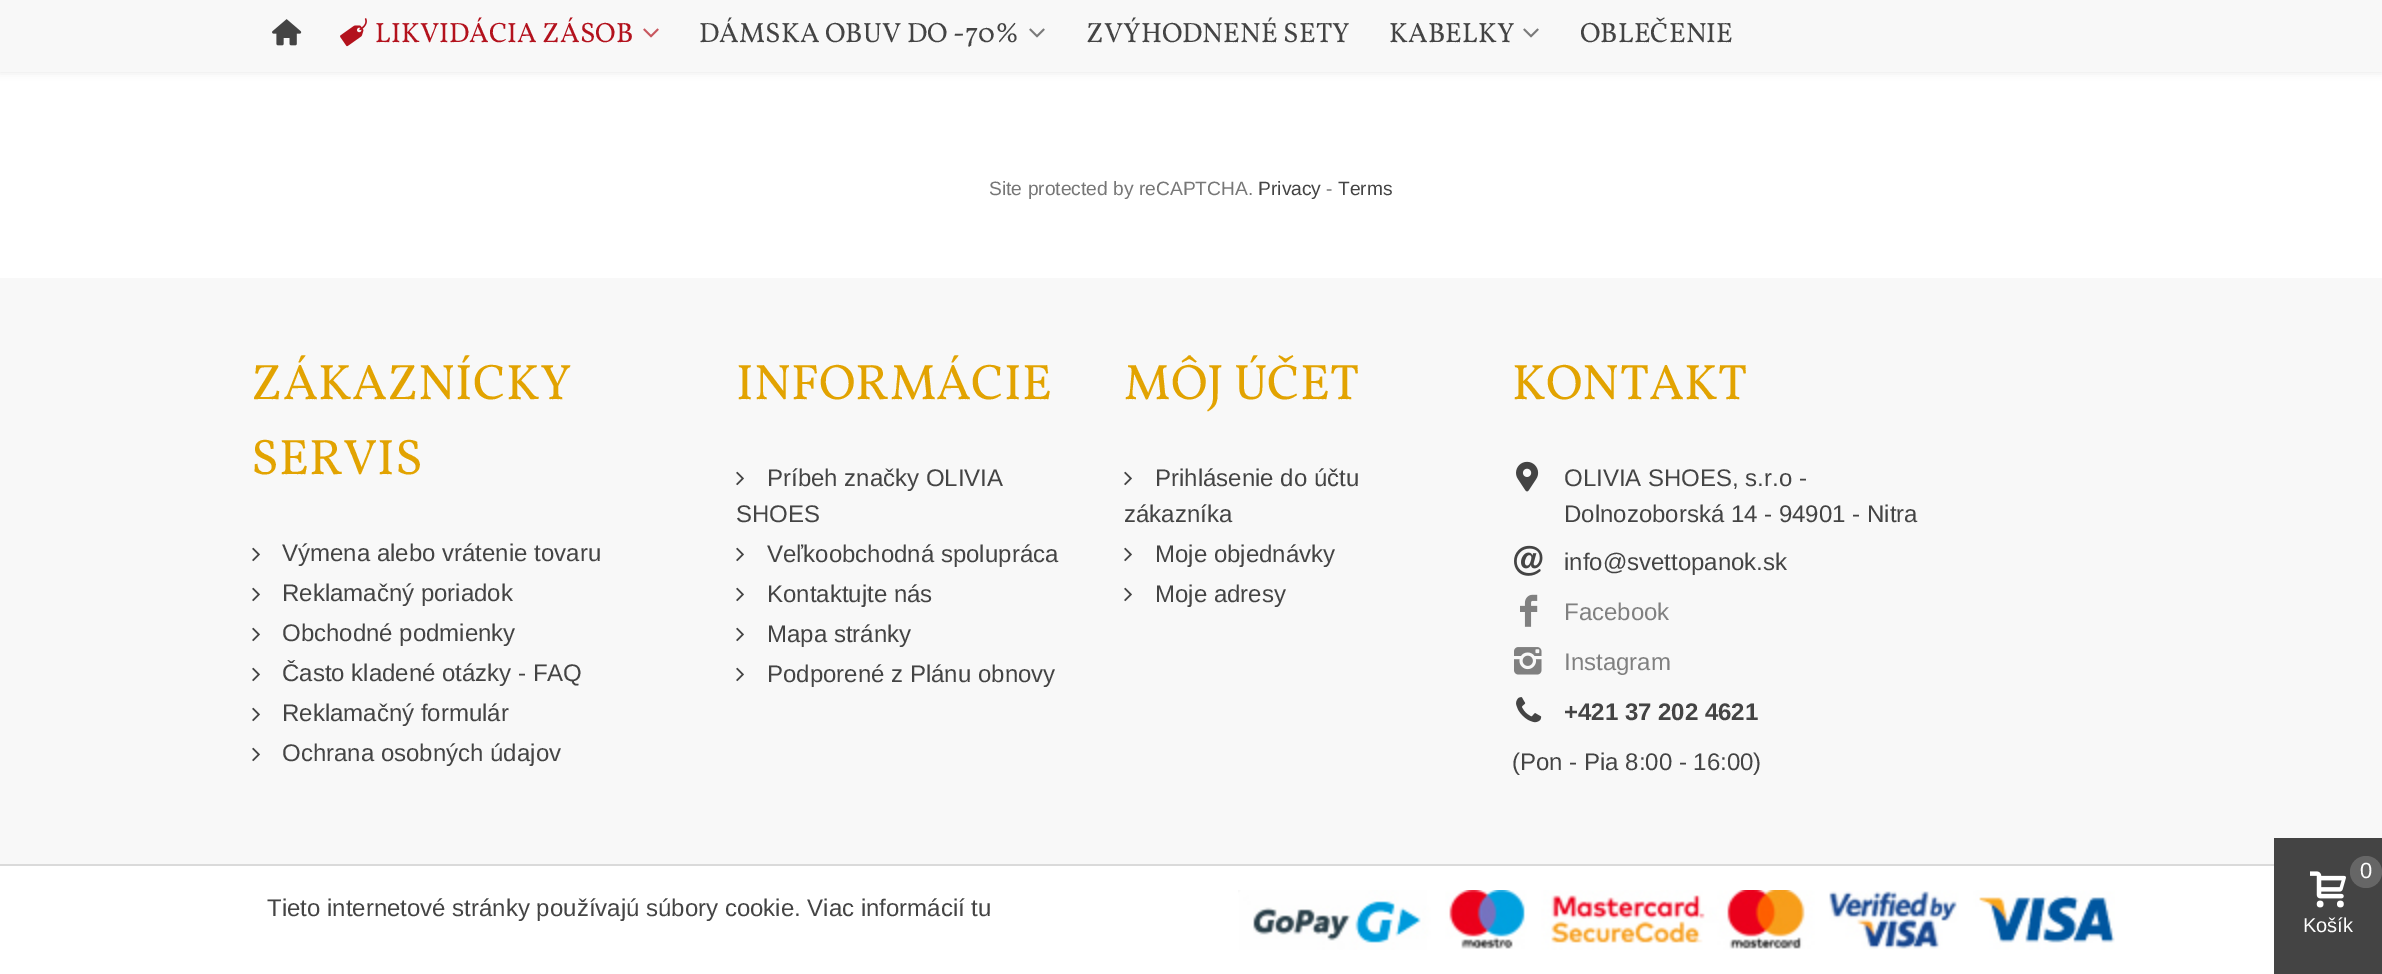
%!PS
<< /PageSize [2382 974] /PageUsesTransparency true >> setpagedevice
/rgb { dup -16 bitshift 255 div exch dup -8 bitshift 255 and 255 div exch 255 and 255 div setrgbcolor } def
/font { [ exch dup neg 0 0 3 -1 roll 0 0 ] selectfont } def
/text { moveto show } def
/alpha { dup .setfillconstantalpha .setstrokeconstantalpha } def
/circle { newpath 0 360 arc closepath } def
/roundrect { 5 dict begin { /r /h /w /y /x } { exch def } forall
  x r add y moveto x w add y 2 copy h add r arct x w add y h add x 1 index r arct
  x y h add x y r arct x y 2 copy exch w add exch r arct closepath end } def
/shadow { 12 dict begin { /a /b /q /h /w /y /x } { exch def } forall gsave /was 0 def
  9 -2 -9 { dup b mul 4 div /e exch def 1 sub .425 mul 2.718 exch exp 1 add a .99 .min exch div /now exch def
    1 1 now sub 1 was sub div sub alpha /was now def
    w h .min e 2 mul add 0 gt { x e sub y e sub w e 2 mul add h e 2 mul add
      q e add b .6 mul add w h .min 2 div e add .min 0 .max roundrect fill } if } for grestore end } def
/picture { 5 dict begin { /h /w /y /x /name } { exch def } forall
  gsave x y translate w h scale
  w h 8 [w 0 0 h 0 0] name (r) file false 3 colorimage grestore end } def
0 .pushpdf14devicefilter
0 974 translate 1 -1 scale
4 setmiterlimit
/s1 { /Vollkorn-Regular 28 font 16#B3121D rgb } def
/s2 { /Vollkorn-Regular 28 font 16#444444 rgb } def
/s3 { /LiberationSans-Regular 19.25 font 16#777777 rgb } def
/s4 { /LiberationSans-Regular 19.25 font 16#444444 rgb } def
/s5 { /Vollkorn-Regular 50 font 16#E2A301 rgb } def
/s6 { /LiberationSans-Regular 24 font 16#444444 rgb } def
/s7 { /LiberationSans-Regular 24 font 16#808080 rgb } def
/s8 { /LiberationSans-Bold 24 font 16#444444 rgb } def
/s9 { /LiberationSans-Regular 22 font 16#FFFFFF rgb } def
/s10 { /LiberationSans-Regular 20 font 16#FFFFFF rgb } def
16#FFFFFF rgb
0 0 2382 974 rectfill
16#000000 rgb
0 0 2382 72 0 4 0.1 shadow
16#F8F8F8 rgb
0 0 2382 72 rectfill
(pic1.raw) 272 19 30 27 picture
(pic2.raw) 340 18 27 29 picture
s1
(LIKVIDÁCIA ZÁSOB) 375 42 text
(pic3.raw) 643 28 16 10 picture
s2
(DÁMSKA OBUV DO -70%) 699 42 text
(pic4.raw) 1029 28 16 10 picture
(ZVÝHODNENÉ SETY) 1086 42 text
(KABELKY) 1389 42 text
(pic4.raw) 1523 28 16 10 picture
(OBLEČENIE) 1580 42 text
s3
(Site protected by reCAPTCHA.) 989 195 text
s4
(Privacy) 1258 195 text
s3
(-) 1326 195 text
s4
(Terms) 1338 195 text
16#F8F8F8 rgb
0 278 2382 586 rectfill
s5
(ZÁKAZNÍCKY) 251 399 text
(SERVIS) 251 474 text
(pic5.raw) 252 547 8 15 picture
s6
(Výmena alebo vrátenie tovaru) 282 561 text
(pic5.raw) 252 587 8 15 picture
(Reklamačný poriadok) 282 601 text
(pic5.raw) 252 627 8 15 picture
(Obchodné podmienky) 282 641 text
(pic5.raw) 252 667 8 15 picture
(Často kladené otázky - FAQ) 282 681 text
(pic5.raw) 252 707 8 15 picture
(Reklamačný formulár) 282 721 text
(pic5.raw) 252 747 8 15 picture
(Ochrana osobných údajov) 282 761 text
s5
(INFORMÁCIE) 736 399 text
(pic5.raw) 736 471 8 15 picture
s6
(Príbeh značky OLIVIA) 767 486 text
(SHOES) 736 522 text
(pic5.raw) 736 547 8 15 picture
(Veľkoobchodná spolupráca) 767 562 text
(pic5.raw) 736 587 8 15 picture
(Kontaktujte nás) 767 602 text
(pic5.raw) 736 627 8 15 picture
(Mapa stránky) 767 642 text
(pic5.raw) 736 667 8 15 picture
(Podporené z Plánu obnovy) 767 682 text
s5
(MÔJ ÚČET) 1124 399 text
(pic5.raw) 1124 471 8 15 picture
s6
(Prihlásenie do účtu) 1155 486 text
(zákazníka) 1124 522 text
(pic5.raw) 1124 547 8 15 picture
(Moje objednávky) 1155 562 text
(pic5.raw) 1124 587 8 15 picture
(Moje adresy) 1155 602 text
s5
(KONTAKT) 1512 399 text
(pic6.raw) 1516 461 23 31 picture
s6
(OLIVIA SHOES, s.r.o -) 1564 486 text
(Dolnozoborská 14 - 94901 - Nitra) 1564 522 text
(pic7.raw) 1514 545 29 31 picture
(info@svettopanok.sk) 1564 570 text
(pic8.raw) 1520 594 18 33 picture
s7
(Facebook) 1564 620 text
(pic9.raw) 1514 647 28 28 picture
(Instagram) 1564 670 text
(pic10.raw) 1516 697 26 26 picture
s8
(+421 37 202 4621) 1564 720 text
s6
(\(Pon - Pia 8:00 - 16:00\)) 1512 770 text
16#DADADA rgb
0 864 2274 2 rectfill
s6
(Tieto internetové stránky používajú súbory cookie. Viac informácií tu) 267 916 text
(pic11.raw) 1238 890 877 60 picture
2274 838 108 136 rectfill
(pic12.raw) 2310 871 36 37 picture
16#666666 rgb
2366 872 16 circle fill
s9
(0) 2360 878 text
s10
(Košík) 2303 932 text
.poppdf14devicefilter showpage
